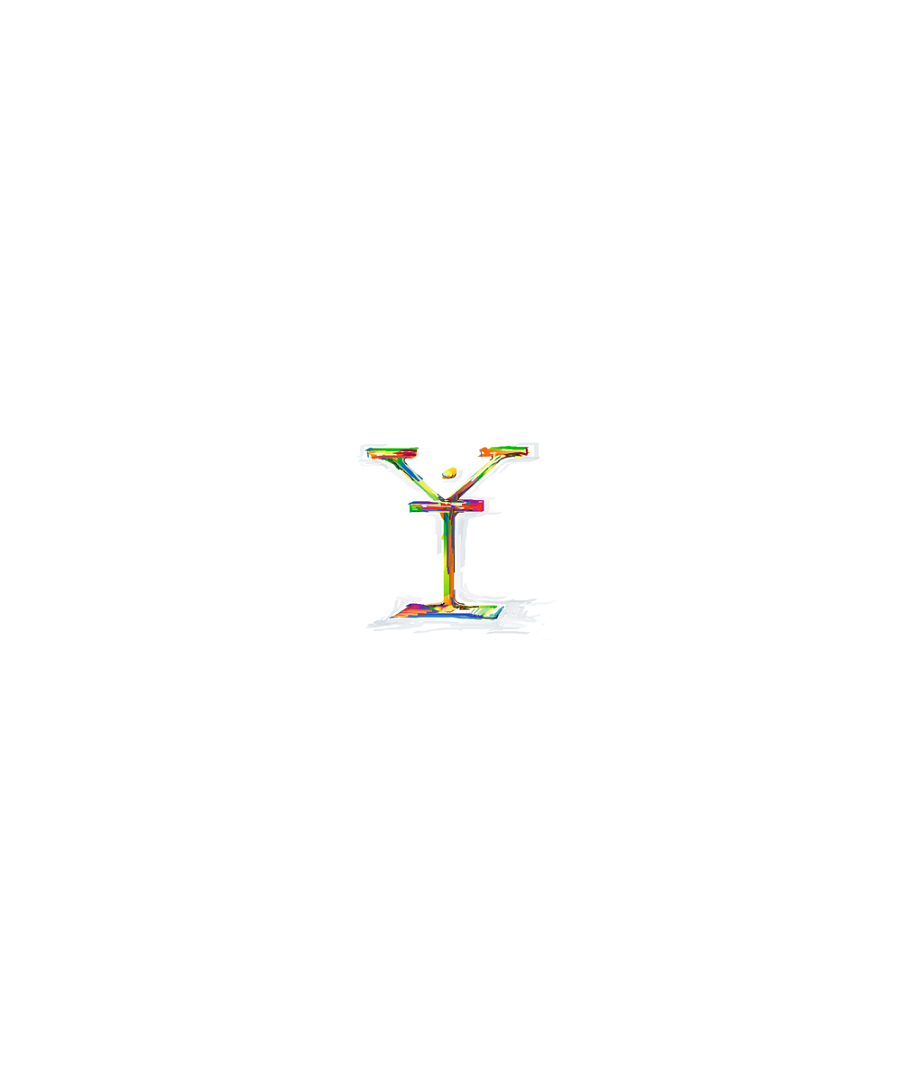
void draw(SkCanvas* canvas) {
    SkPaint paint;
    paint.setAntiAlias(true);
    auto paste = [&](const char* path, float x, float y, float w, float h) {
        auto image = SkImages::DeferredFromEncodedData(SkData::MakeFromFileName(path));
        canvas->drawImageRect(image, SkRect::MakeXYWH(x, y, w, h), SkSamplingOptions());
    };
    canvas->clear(SK_ColorWHITE);
    paste("pic1.png", 356, 442, 200, 198);
}
